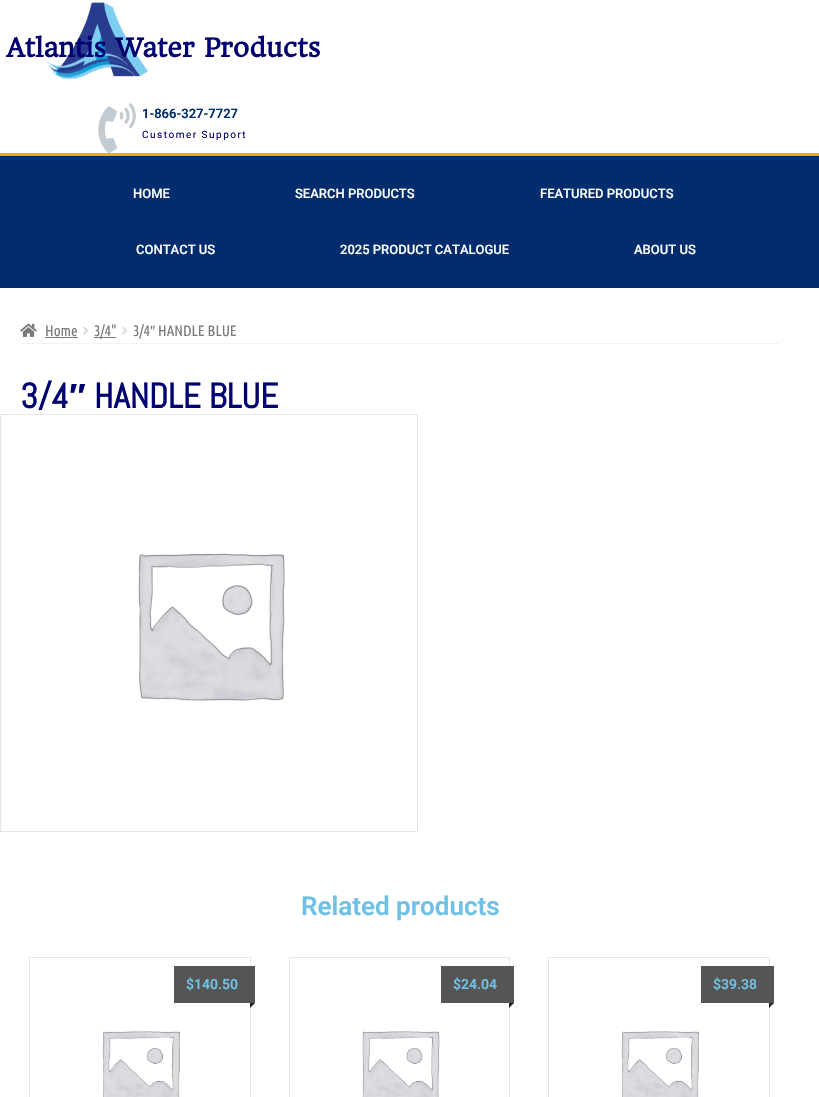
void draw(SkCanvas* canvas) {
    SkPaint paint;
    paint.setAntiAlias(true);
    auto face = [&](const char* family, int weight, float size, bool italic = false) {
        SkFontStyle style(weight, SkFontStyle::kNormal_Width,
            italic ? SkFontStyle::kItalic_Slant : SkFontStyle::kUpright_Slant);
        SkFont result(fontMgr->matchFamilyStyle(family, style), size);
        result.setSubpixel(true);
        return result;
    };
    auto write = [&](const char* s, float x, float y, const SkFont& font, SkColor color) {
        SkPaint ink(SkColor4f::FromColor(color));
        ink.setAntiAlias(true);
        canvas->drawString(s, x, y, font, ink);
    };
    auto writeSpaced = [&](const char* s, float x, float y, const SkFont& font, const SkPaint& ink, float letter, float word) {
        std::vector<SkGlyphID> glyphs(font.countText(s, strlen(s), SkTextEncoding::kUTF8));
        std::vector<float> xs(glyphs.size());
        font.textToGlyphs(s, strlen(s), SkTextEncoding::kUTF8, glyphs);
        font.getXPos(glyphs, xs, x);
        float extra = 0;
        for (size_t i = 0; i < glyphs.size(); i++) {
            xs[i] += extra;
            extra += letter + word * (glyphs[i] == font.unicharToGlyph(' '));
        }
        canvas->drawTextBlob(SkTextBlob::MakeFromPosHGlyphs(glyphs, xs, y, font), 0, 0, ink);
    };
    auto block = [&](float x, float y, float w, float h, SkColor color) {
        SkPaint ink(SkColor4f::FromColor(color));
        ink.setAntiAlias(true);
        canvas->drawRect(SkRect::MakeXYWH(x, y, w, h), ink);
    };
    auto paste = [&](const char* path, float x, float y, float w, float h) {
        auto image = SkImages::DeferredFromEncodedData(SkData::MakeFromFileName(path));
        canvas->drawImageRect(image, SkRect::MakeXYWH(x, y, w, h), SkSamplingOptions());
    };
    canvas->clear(SK_ColorWHITE);
    paste("pic1.png", 47, 2, 101, 77);
    auto kFont1 = face("HeadlandOne", 700, 25);
    write("Atlantis Water Products", 6, 57, kFont1, SkColorSetRGB(0, 0, 112));
    paste("pic2.png", 98, 103, 38, 50);
    auto kFont2 = face("Roboto", 600, 13);
    write("1-866-327-7727", 142, 118, kFont2, SkColorSetRGB(1, 44, 109));
    auto kFont3 = face("Roboto", 400, 10);
    paint.setColor(SkColorSetRGB(0, 0, 112));
    writeSpaced("Customer Support", 142, 138, kFont3, paint, 1.5f, 0);
    block(0, 156, 819, 132, SkColorSetRGB(1, 44, 109));
    block(0, 153, 819, 3, SkColorSetRGB(245, 166, 18));
    auto kFont4 = face("Roboto", 500, 13);
    write("HOME", 133, 198, kFont4, SK_ColorWHITE);
    write("SEARCH PRODUCTS", 295, 198, kFont4, SK_ColorWHITE);
    write("FEATURED PRODUCTS", 540, 198, kFont4, SK_ColorWHITE);
    write("CONTACT US", 136, 254, kFont4, SK_ColorWHITE);
    write("2025 PRODUCT CATALOGUE", 340, 254, kFont4, SK_ColorWHITE);
    write("ABOUT US", 634, 254, kFont4, SK_ColorWHITE);
    block(20, 343, 759, 1, SkColorSetRGB(242, 242, 242));
    paste("pic3.png", 20, 323, 17, 14);
    auto kFont5 = face("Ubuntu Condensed", 400, 15);
    write("Home", 45, 336, kFont5, SkColorSetRGB(122, 122, 122));
    block(45, 337, 33, 1, SkColorSetRGB(122, 122, 122));
    paste("pic4.png", 83, 326, 6, 9);
    block(94, 337, 22, 1, SkColorSetRGB(122, 122, 122));
    write("3/4\"", 94, 336, kFont5, SkColorSetRGB(122, 122, 122));
    paste("pic4.png", 122, 326, 6, 9);
    write("3/4", 133, 336, kFont5, SkColorSetRGB(122, 122, 122));
    auto kFont6 = face("Liberation Sans", 400, 15);
    write("″", 150, 336, kFont6, SkColorSetRGB(122, 122, 122));
    write("HANDLE BLUE", 158, 336, kFont5, SkColorSetRGB(122, 122, 122));
    auto kFont7 = face("Abel", 700, 35);
    write("3/4", 20, 408, kFont7, SkColorSetRGB(0, 0, 112));
    auto kFont8 = face("Liberation Sans", 700, 35);
    write("″", 69, 408, kFont8, SkColorSetRGB(0, 0, 112));
    write("HANDLE BLUE", 94, 408, kFont7, SkColorSetRGB(0, 0, 112));
    paint.setStyle(SkPaint::kStroke_Style);
    paint.setStrokeWidth(1);
    paint.setColor(SkColorSetRGB(230, 230, 230));
    canvas->drawRect(SkRect::MakeXYWH(0.5f, 414.5f, 417, 417), paint);
    paste("pic5.png", 138, 553, 147, 148);
    auto kFont9 = face("Roboto", 600, 26);
    write("Related products", 301, 915, kFont9, SkColorSetRGB(110, 193, 228));
    canvas->drawRect(SkRect::MakeXYWH(29.5f, 957.5f, 221, 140), paint);
    paste("pic6.png", 102, 1031, 78, 66);
    block(174, 966, 81, 37, SkColorSetRGB(85, 85, 85));
    auto kFont10 = face("Roboto", 600, 14);
    write("$140.50", 186, 989, kFont10, SkColorSetRGB(110, 193, 228));
    paint.setStyle(SkPaint::kFill_Style);
    paint.setColor(SkColorSetRGB(34, 34, 34));
    canvas->drawPath(SkPathBuilder().moveTo(250, 1003).lineTo(255, 1003).lineTo(250, 1008).close().detach(), paint);
    paint.setStyle(SkPaint::kStroke_Style);
    paint.setColor(SkColorSetRGB(230, 230, 230));
    canvas->drawRect(SkRect::MakeXYWH(289.5f, 957.5f, 220, 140), paint);
    paste("pic7.png", 362, 1031, 78, 66);
    block(441, 966, 73, 37, SkColorSetRGB(85, 85, 85));
    write("$24.04", 453, 989, kFont10, SkColorSetRGB(110, 193, 228));
    paint.setStyle(SkPaint::kFill_Style);
    paint.setColor(SkColorSetRGB(34, 34, 34));
    canvas->drawPath(SkPathBuilder().moveTo(509, 1003).lineTo(514, 1003).lineTo(509, 1008).close().detach(), paint);
    paint.setStyle(SkPaint::kStroke_Style);
    paint.setColor(SkColorSetRGB(230, 230, 230));
    canvas->drawRect(SkRect::MakeXYWH(548.5f, 957.5f, 221, 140), paint);
    paste("pic8.png", 621, 1031, 78, 66);
    block(701, 966, 73, 37, SkColorSetRGB(85, 85, 85));
    write("$39.38", 713, 989, kFont10, SkColorSetRGB(110, 193, 228));
    paint.setStyle(SkPaint::kFill_Style);
    paint.setColor(SkColorSetRGB(34, 34, 34));
    canvas->drawPath(SkPathBuilder().moveTo(769, 1003).lineTo(774, 1003).lineTo(769, 1008).close().detach(), paint);
}
